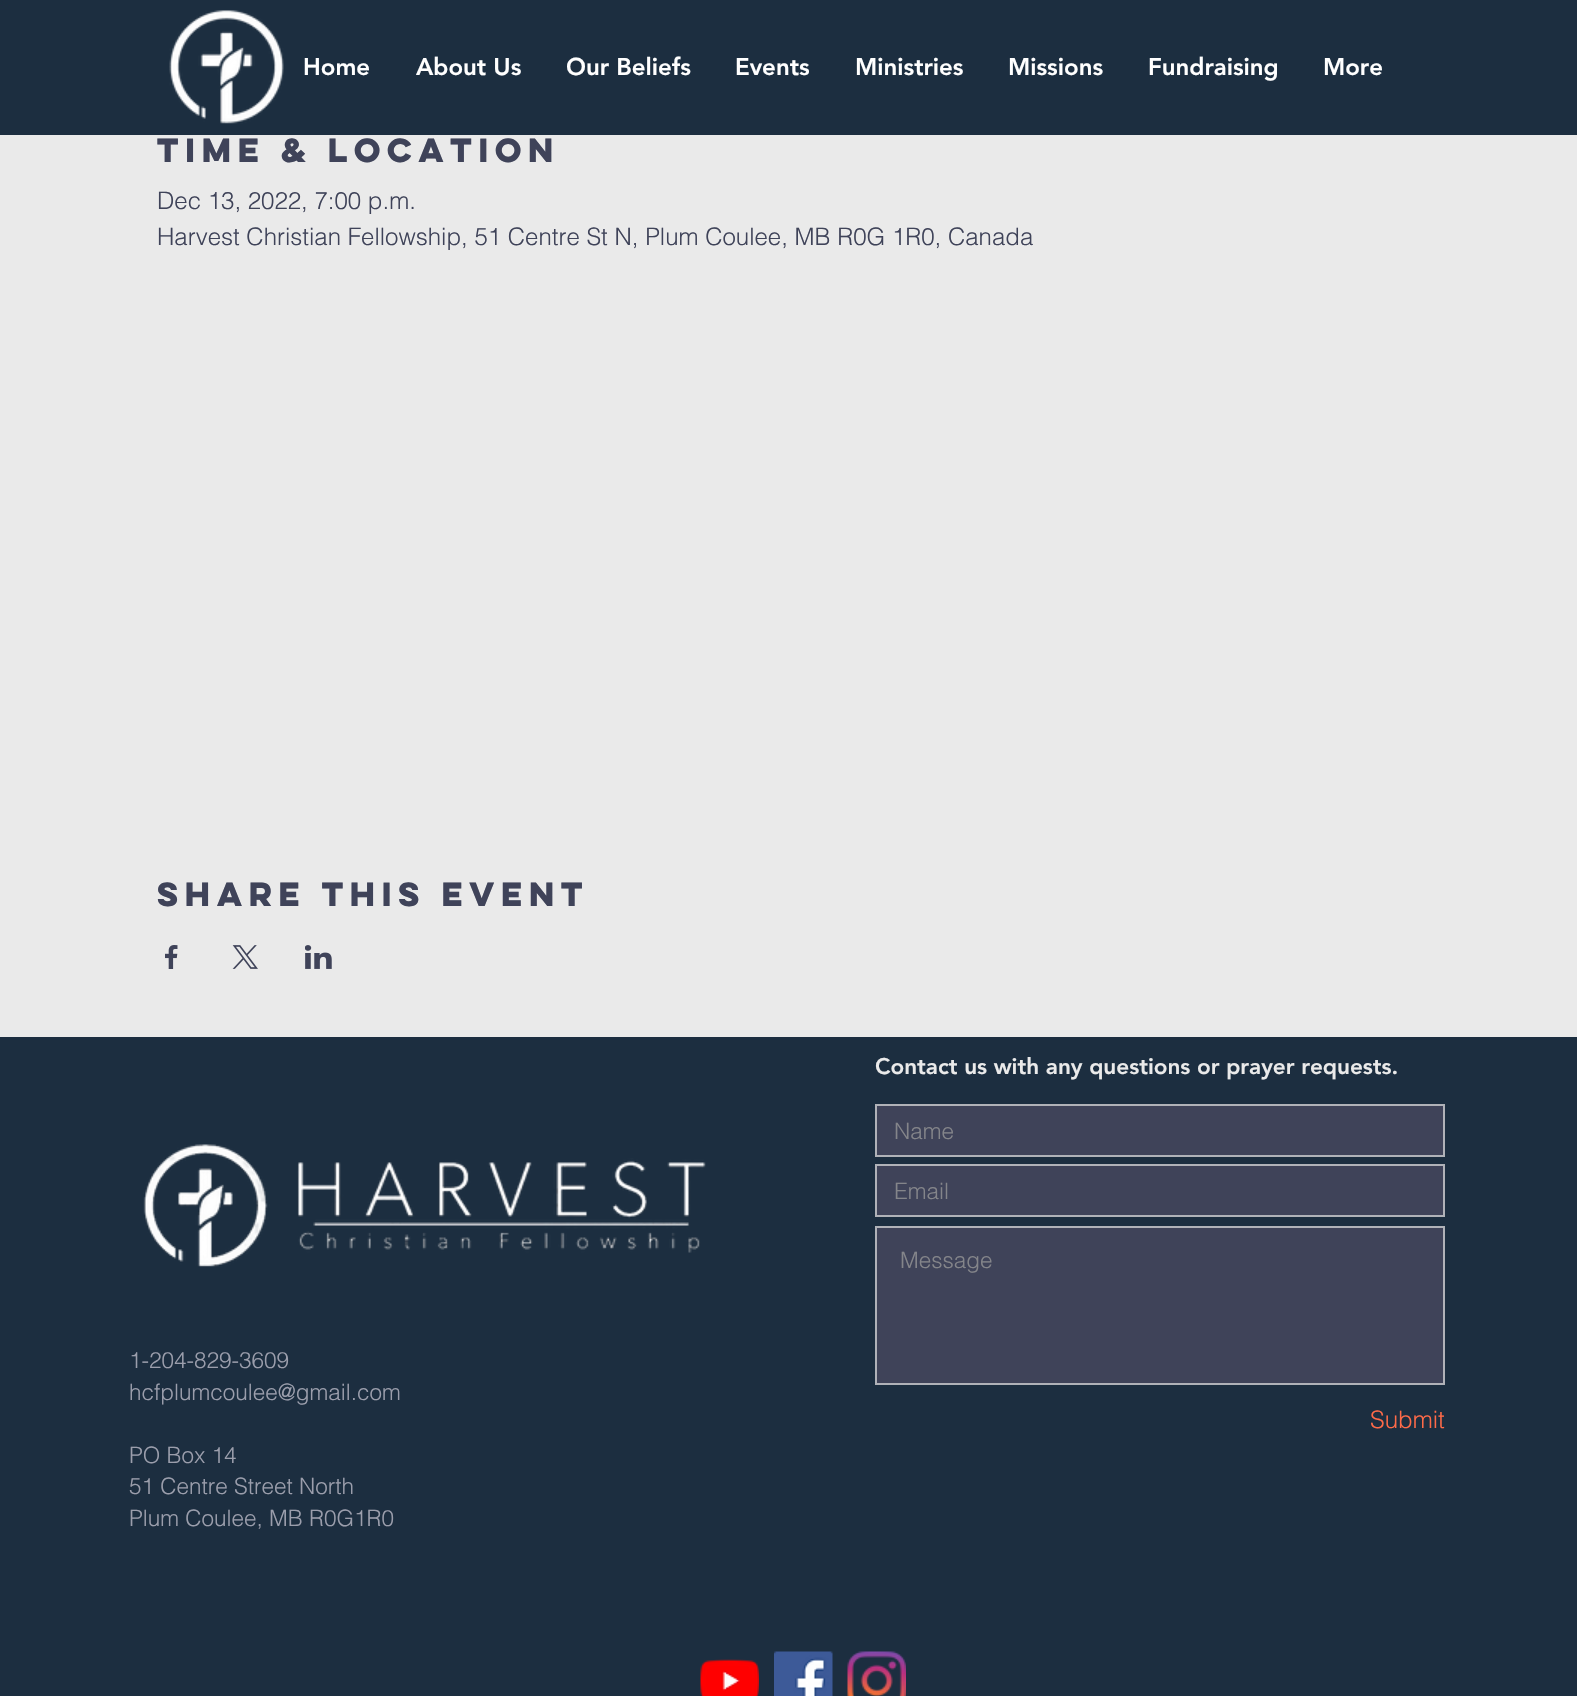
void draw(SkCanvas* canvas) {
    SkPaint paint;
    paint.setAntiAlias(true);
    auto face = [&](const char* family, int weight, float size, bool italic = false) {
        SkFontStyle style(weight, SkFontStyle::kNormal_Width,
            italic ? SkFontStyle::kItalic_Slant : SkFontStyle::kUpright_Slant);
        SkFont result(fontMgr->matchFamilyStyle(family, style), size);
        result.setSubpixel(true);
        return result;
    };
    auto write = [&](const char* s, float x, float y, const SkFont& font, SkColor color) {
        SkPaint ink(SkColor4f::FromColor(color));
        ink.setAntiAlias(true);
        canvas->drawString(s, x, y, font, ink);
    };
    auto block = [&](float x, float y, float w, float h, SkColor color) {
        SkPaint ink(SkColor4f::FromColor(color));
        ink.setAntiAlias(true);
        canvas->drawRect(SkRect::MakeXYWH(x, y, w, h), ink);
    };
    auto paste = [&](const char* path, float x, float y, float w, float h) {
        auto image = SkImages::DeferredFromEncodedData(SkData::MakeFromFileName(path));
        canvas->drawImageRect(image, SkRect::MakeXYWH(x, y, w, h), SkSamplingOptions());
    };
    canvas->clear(SkColorSetRGB(234, 234, 234));
    block(0, 0, 1577, 135, SkColorSetRGB(28, 46, 64));
    paste("pic1.png", 169, 10, 115, 114);
    auto kFont1 = face("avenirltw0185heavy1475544", 900, 24);
    write("Home", 303, 75, kFont1, SK_ColorWHITE);
    write("About Us", 416, 75, kFont1, SK_ColorWHITE);
    write("Our Beliefs", 566, 75, kFont1, SK_ColorWHITE);
    write("Events", 735, 75, kFont1, SK_ColorWHITE);
    write("Ministries", 855, 75, kFont1, SK_ColorWHITE);
    write("Missions", 1008, 75, kFont1, SK_ColorWHITE);
    write("Fundraising", 1148, 75, kFont1, SK_ColorWHITE);
    write("More", 1323, 75, kFont1, SK_ColorWHITE);
    auto kFont2 = face("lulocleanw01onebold", 700, 30);
    write("Time & Location", 157, 162, kFont2, SkColorSetRGB(63, 67, 89));
    auto kFont3 = face("helvetica", 300, 24);
    write("Dec 13, 2022, 7:00 p.m.", 157, 209, kFont3, SkColorSetRGB(63, 67, 89));
    write("Harvest Christian Fellowship, 51 Centre St N, Plum Coulee, MB R0G 1R0, Canada", 157, 245, kFont3, SkColorSetRGB(63, 67, 89));
    write("Share this event", 157, 906, kFont2, SkColorSetRGB(63, 67, 89));
    paste("pic2.png", 165, 945, 13, 24);
    paste("pic3.png", 232, 945, 26, 24);
    paste("pic4.png", 305, 945, 27, 24);
    block(0, 1037, 1577, 659, SkColorSetRGB(28, 46, 64));
    auto kFont4 = face("avenirltw0185heavy1475544", 900, 22.5f);
    write("Contact us with any questions or prayer requests.", 875, 1074, kFont4, SkColorSetRGB(234, 234, 234));
    paste("pic5.png", 143, 1144, 563, 123);
    paint.setColor(SkColorSetRGB(63, 67, 89));
    canvas->drawRect(SkRect::MakeXYWH(876, 1105, 568, 51), paint);
    paint.setStyle(SkPaint::kStroke_Style);
    paint.setStrokeWidth(2);
    paint.setColor(SkColorSetRGB(176, 178, 184));
    canvas->drawRect(SkRect::MakeXYWH(876, 1105, 568, 51), paint);
    auto kFont5 = face("helvetica", 300, 22.5f);
    write("Name", 894, 1139, kFont5, SkColorSetRGB(132, 133, 138));
    paint.setStyle(SkPaint::kFill_Style);
    paint.setColor(SkColorSetRGB(63, 67, 89));
    canvas->drawRect(SkRect::MakeXYWH(876, 1165, 568, 51), paint);
    paint.setStyle(SkPaint::kStroke_Style);
    paint.setColor(SkColorSetRGB(176, 178, 184));
    canvas->drawRect(SkRect::MakeXYWH(876, 1165, 568, 51), paint);
    write("Email", 894, 1199, kFont5, SkColorSetRGB(132, 133, 138));
    paint.setStyle(SkPaint::kFill_Style);
    paint.setColor(SkColorSetRGB(63, 67, 89));
    canvas->drawRect(SkRect::MakeXYWH(876, 1227, 568, 157), paint);
    paint.setStyle(SkPaint::kStroke_Style);
    paint.setColor(SkColorSetRGB(176, 178, 184));
    canvas->drawRect(SkRect::MakeXYWH(876, 1227, 568, 157), paint);
    write("Message", 900, 1268, kFont5, SkColorSetRGB(132, 133, 138));
    write("Submit", 1370, 1428, kFont3, SkColorSetRGB(255, 106, 72));
    write("1-204-829-3609", 129, 1368, kFont5, SkColorSetRGB(155, 158, 172));
    write("hcfplumcoulee@gmail.com", 129, 1400, kFont5, SkColorSetRGB(155, 158, 172));
    write("PO Box 14", 129, 1463, kFont5, SkColorSetRGB(155, 158, 172));
    write("51 Centre Street North", 129, 1494, kFont5, SkColorSetRGB(155, 158, 172));
    write("Plum Coulee, MB R0G1R0", 129, 1526, kFont5, SkColorSetRGB(155, 158, 172));
    paste("pic6.png", 700, 1659, 59, 37);
    paste("pic7.png", 774, 1651, 59, 45);
    paste("pic8.png", 847, 1651, 59, 45);
}
